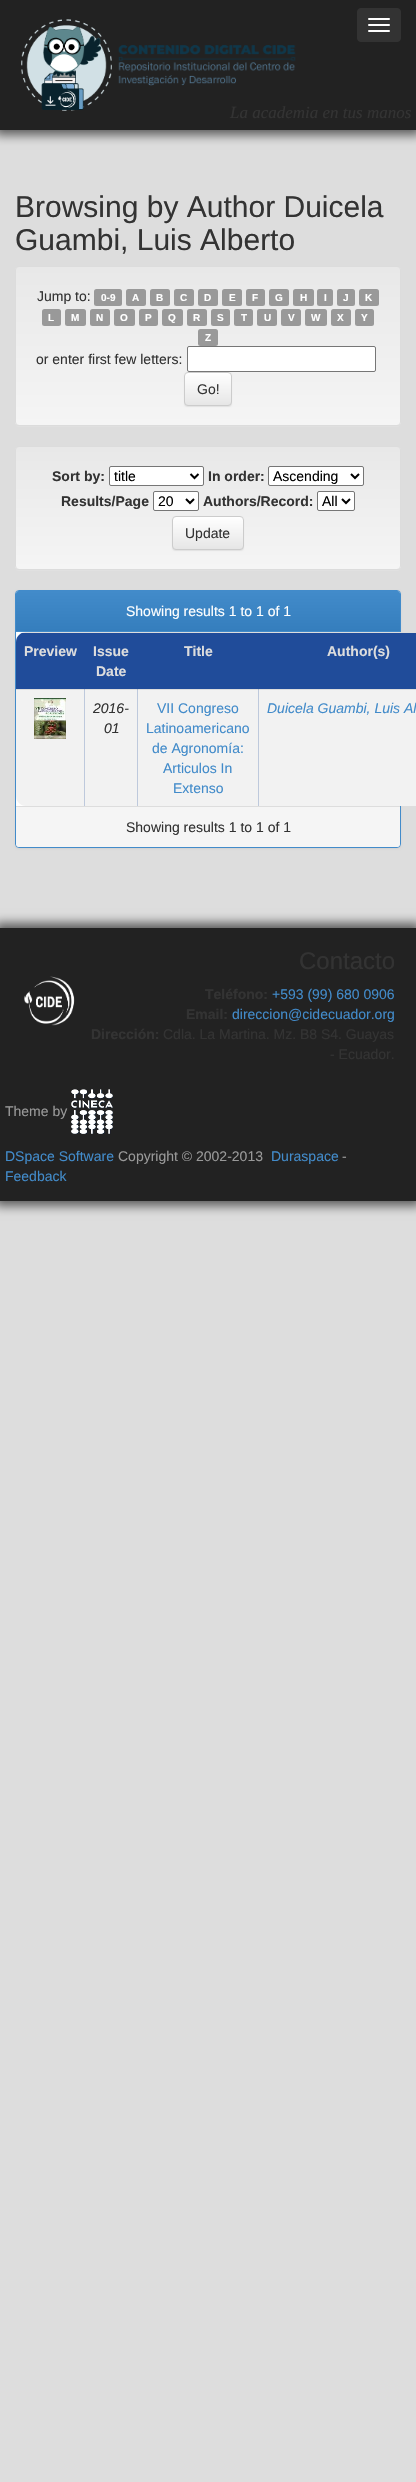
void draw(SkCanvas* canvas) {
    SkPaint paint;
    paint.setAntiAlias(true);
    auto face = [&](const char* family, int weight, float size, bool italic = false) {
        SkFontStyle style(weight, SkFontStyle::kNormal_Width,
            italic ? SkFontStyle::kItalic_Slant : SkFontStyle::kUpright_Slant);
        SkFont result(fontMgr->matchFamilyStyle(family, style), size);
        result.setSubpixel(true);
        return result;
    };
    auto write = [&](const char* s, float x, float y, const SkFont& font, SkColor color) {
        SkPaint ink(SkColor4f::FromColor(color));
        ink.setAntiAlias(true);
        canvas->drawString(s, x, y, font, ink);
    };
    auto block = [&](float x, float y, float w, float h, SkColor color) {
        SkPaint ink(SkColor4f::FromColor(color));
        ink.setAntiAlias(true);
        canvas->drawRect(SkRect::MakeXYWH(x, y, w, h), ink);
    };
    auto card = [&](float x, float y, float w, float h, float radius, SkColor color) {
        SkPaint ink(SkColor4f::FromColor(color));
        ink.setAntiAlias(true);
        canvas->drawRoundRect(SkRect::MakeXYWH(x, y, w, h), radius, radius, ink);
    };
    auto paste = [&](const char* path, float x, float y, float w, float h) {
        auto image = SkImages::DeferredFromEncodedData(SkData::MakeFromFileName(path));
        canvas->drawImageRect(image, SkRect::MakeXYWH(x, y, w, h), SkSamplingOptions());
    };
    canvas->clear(SkColorSetRGB(221, 221, 221));
    paint.setColor(SkColorSetRGB(90, 90, 90));
    paint.setMaskFilter(SkMaskFilter::MakeBlur(kNormal_SkBlurStyle, 5));
    canvas->drawRect(SkRect::MakeXYWH(-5, -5, 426, 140), paint);
    paint.setMaskFilter(nullptr);
    block(0, 0, 416, 130, SkColorSetRGB(34, 34, 34));
    paste("pic1.png", 21, 19, 91, 92);
    paste("pic2.png", 118, 45, 178, 41);
    paint.setColor(SkColorSetRGB(51, 51, 51));
    canvas->drawRoundRect(SkRect::MakeXYWH(357.5f, 8.5f, 43, 33), 3.5f, 3.5f, paint);
    paint.setStyle(SkPaint::kStroke_Style);
    paint.setStrokeWidth(1);
    canvas->drawRoundRect(SkRect::MakeXYWH(357.5f, 8.5f, 43, 33), 3.5f, 3.5f, paint);
    card(368, 18, 22, 2, 1, SK_ColorWHITE);
    card(368, 24, 22, 2, 1, SK_ColorWHITE);
    card(368, 30, 22, 2, 1, SK_ColorWHITE);
    auto kFont1 = face("Liberation Serif", 400, 17, true);
    write("La academia en tus manos", 230, 118, kFont1, SkColorSetRGB(51, 51, 51));
    auto kFont2 = face("Liberation Sans", 400, 30);
    write("Browsing by Author Duicela", 15, 217, kFont2, SkColorSetRGB(51, 51, 51));
    write("Guambi, Luis Alberto", 15, 250, kFont2, SkColorSetRGB(51, 51, 51));
    paint.setStyle(SkPaint::kFill_Style);
    paint.setColor(SkColorSetRGB(224, 224, 224));
    canvas->drawPath(SkPathBuilder().moveTo(15, 422).cubicTo(15, 425, 16, 427, 19, 427).lineTo(397, 427).cubicTo(400, 427, 401, 425, 401, 422).cubicTo(401, 424, 399, 426, 397, 426).lineTo(19, 426).cubicTo(17, 426, 15, 424, 15, 422).close().detach(), paint);
    canvas->save();
    canvas->clipPath(SkPathBuilder().moveTo(19, 266).lineTo(397, 266).cubicTo(399, 266, 401, 268, 401, 270).lineTo(401, 422).cubicTo(401, 424, 399, 426, 397, 426).lineTo(19, 426).cubicTo(17, 426, 15, 424, 15, 422).lineTo(15, 270).cubicTo(15, 268, 17, 266, 19, 266).close().detach(), true);
    {
        const SkColor colors[] = {SkColorSetRGB(232, 232, 232), SkColorSetRGB(245, 245, 245)};
        const float stops[] = {0, 1};
        const SkPoint ends[] = {{208, 267}, {208, 425}};
        paint.setShader(SkGradientShader::MakeLinear(ends, colors, stops, 2, SkTileMode::kClamp));
        paint.setAlpha(255);
    }
    canvas->drawRect(SkRect::MakeXYWH(15, 267, 386, 158), paint);
    canvas->restore();
    paint.setStyle(SkPaint::kStroke_Style);
    paint.setShader(nullptr);
    paint.setColor(SkColorSetRGB(220, 220, 220));
    canvas->drawRoundRect(SkRect::MakeXYWH(15.5f, 266.5f, 385, 159), 3.5f, 3.5f, paint);
    auto kFont3 = face("Liberation Sans", 400, 14);
    write("Jump to:", 37, 301, kFont3, SkColorSetRGB(51, 51, 51));
    card(94, 289, 28, 17, 2.5f, SkColorSetRGB(153, 153, 153));
    auto kFont4 = face("Liberation Sans", 700, 10);
    write("0-9", 101, 301, kFont4, SK_ColorWHITE);
    card(126, 289, 20, 17, 2.5f, SkColorSetRGB(153, 153, 153));
    write("A", 132, 301, kFont4, SK_ColorWHITE);
    card(150, 289, 20, 17, 2.5f, SkColorSetRGB(153, 153, 153));
    write("B", 156, 301, kFont4, SK_ColorWHITE);
    card(174, 289, 20, 17, 2.5f, SkColorSetRGB(153, 153, 153));
    write("C", 180, 301, kFont4, SK_ColorWHITE);
    card(198, 289, 20, 17, 2.5f, SkColorSetRGB(153, 153, 153));
    write("D", 204, 301, kFont4, SK_ColorWHITE);
    card(222, 289, 20, 17, 2.5f, SkColorSetRGB(153, 153, 153));
    write("E", 229, 301, kFont4, SK_ColorWHITE);
    card(246, 289, 19, 17, 2.5f, SkColorSetRGB(153, 153, 153));
    write("F", 252, 301, kFont4, SK_ColorWHITE);
    card(269, 289, 20, 17, 2.5f, SkColorSetRGB(153, 153, 153));
    write("G", 275, 301, kFont4, SK_ColorWHITE);
    card(293, 289, 21, 17, 2.5f, SkColorSetRGB(153, 153, 153));
    write("H", 300, 301, kFont4, SK_ColorWHITE);
    card(317, 289, 16, 17, 2.5f, SkColorSetRGB(153, 153, 153));
    write("I", 324, 301, kFont4, SK_ColorWHITE);
    card(337, 289, 18, 17, 2.5f, SkColorSetRGB(153, 153, 153));
    write("J", 343, 301, kFont4, SK_ColorWHITE);
    card(359, 289, 20, 17, 2.5f, SkColorSetRGB(153, 153, 153));
    write("K", 365, 301, kFont4, SK_ColorWHITE);
    card(42, 309, 19, 17, 2.5f, SkColorSetRGB(153, 153, 153));
    write("L", 48, 321, kFont4, SK_ColorWHITE);
    card(65, 309, 21, 17, 2.5f, SkColorSetRGB(153, 153, 153));
    write("M", 71, 321, kFont4, SK_ColorWHITE);
    card(90, 309, 20, 17, 2.5f, SkColorSetRGB(153, 153, 153));
    write("N", 96, 321, kFont4, SK_ColorWHITE);
    card(114, 309, 21, 17, 2.5f, SkColorSetRGB(153, 153, 153));
    write("O", 120, 321, kFont4, SK_ColorWHITE);
    card(139, 309, 19, 17, 2.5f, SkColorSetRGB(153, 153, 153));
    write("P", 145, 321, kFont4, SK_ColorWHITE);
    card(162, 309, 21, 17, 2.5f, SkColorSetRGB(153, 153, 153));
    write("Q", 168, 321, kFont4, SK_ColorWHITE);
    card(187, 309, 20, 17, 2.5f, SkColorSetRGB(153, 153, 153));
    write("R", 193, 321, kFont4, SK_ColorWHITE);
    card(211, 309, 19, 17, 2.5f, SkColorSetRGB(153, 153, 153));
    write("S", 217, 321, kFont4, SK_ColorWHITE);
    card(234, 309, 19, 17, 2.5f, SkColorSetRGB(153, 153, 153));
    write("T", 241, 321, kFont4, SK_ColorWHITE);
    card(257, 309, 20, 17, 2.5f, SkColorSetRGB(153, 153, 153));
    write("U", 264, 321, kFont4, SK_ColorWHITE);
    card(281, 309, 20, 17, 2.5f, SkColorSetRGB(153, 153, 153));
    write("V", 288, 321, kFont4, SK_ColorWHITE);
    card(305, 309, 22, 17, 2.5f, SkColorSetRGB(153, 153, 153));
    write("W", 311, 321, kFont4, SK_ColorWHITE);
    card(331, 309, 20, 17, 2.5f, SkColorSetRGB(153, 153, 153));
    write("X", 337, 321, kFont4, SK_ColorWHITE);
    card(355, 309, 19, 17, 2.5f, SkColorSetRGB(153, 153, 153));
    write("Y", 361, 321, kFont4, SK_ColorWHITE);
    card(198, 329, 20, 17, 2.5f, SkColorSetRGB(153, 153, 153));
    write("Z", 205, 341, kFont4, SK_ColorWHITE);
    write("or enter first few letters:", 36, 364, kFont3, SkColorSetRGB(51, 51, 51));
    paint.setStyle(SkPaint::kFill_Style);
    paint.setColor(SK_ColorWHITE);
    canvas->drawRoundRect(SkRect::MakeXYWH(187.5f, 346.5f, 188, 25), 1.5f, 1.5f, paint);
    paint.setStyle(SkPaint::kStroke_Style);
    paint.setColor(SkColorSetRGB(118, 118, 118));
    canvas->drawRoundRect(SkRect::MakeXYWH(187.5f, 346.5f, 188, 25), 1.5f, 1.5f, paint);
    paint.setStyle(SkPaint::kFill_Style);
    paint.setColor(SkColorSetARGB(18, 0, 0, 0));
    paint.setMaskFilter(SkMaskFilter::MakeBlur(kNormal_SkBlurStyle, 0.5f));
    canvas->drawRoundRect(SkRect::MakeXYWH(184, 373, 48, 34), 4, 4, paint);
    paint.setMaskFilter(nullptr);
    canvas->save();
    canvas->clipPath(SkPathBuilder().moveTo(188, 372).lineTo(228, 372).cubicTo(230, 372, 232, 374, 232, 376).lineTo(232, 402).cubicTo(232, 404, 230, 406, 228, 406).lineTo(188, 406).cubicTo(186, 406, 184, 404, 184, 402).lineTo(184, 376).cubicTo(184, 374, 186, 372, 188, 372).close().detach(), true);
    {
        const SkColor colors[] = {SK_ColorWHITE, SkColorSetRGB(230, 230, 230)};
        const float stops[] = {0, 1};
        const SkPoint ends[] = {{208, 373}, {208, 405}};
        paint.setShader(SkGradientShader::MakeLinear(ends, colors, stops, 2, SkTileMode::kClamp));
        paint.setAlpha(255);
    }
    canvas->drawRect(SkRect::MakeXYWH(184, 373, 48, 32), paint);
    canvas->restore();
    paint.setStyle(SkPaint::kStroke_Style);
    paint.setShader(nullptr);
    paint.setColor(SkColorSetRGB(204, 204, 204));
    canvas->drawRoundRect(SkRect::MakeXYWH(184.5f, 372.5f, 47, 33), 3.5f, 3.5f, paint);
    write("Go!", 197, 394, kFont3, SkColorSetRGB(51, 51, 51));
    paint.setStyle(SkPaint::kFill_Style);
    paint.setColor(SkColorSetRGB(224, 224, 224));
    canvas->drawPath(SkPathBuilder().moveTo(15, 566).cubicTo(15, 569, 16, 571, 19, 571).lineTo(397, 571).cubicTo(400, 571, 401, 569, 401, 566).cubicTo(401, 568, 399, 570, 397, 570).lineTo(19, 570).cubicTo(17, 570, 15, 568, 15, 566).close().detach(), paint);
    canvas->save();
    canvas->clipPath(SkPathBuilder().moveTo(19, 446).lineTo(397, 446).cubicTo(399, 446, 401, 448, 401, 450).lineTo(401, 566).cubicTo(401, 568, 399, 570, 397, 570).lineTo(19, 570).cubicTo(17, 570, 15, 568, 15, 566).lineTo(15, 450).cubicTo(15, 448, 17, 446, 19, 446).close().detach(), true);
    {
        const SkColor colors[] = {SkColorSetRGB(232, 232, 232), SkColorSetRGB(245, 245, 245)};
        const float stops[] = {0, 1};
        const SkPoint ends[] = {{208, 447}, {208, 569}};
        paint.setShader(SkGradientShader::MakeLinear(ends, colors, stops, 2, SkTileMode::kClamp));
        paint.setAlpha(255);
    }
    canvas->drawRect(SkRect::MakeXYWH(15, 447, 386, 122), paint);
    canvas->restore();
    paint.setStyle(SkPaint::kStroke_Style);
    paint.setShader(nullptr);
    paint.setColor(SkColorSetRGB(220, 220, 220));
    canvas->drawRoundRect(SkRect::MakeXYWH(15.5f, 446.5f, 385, 123), 3.5f, 3.5f, paint);
    auto kFont5 = face("Liberation Sans", 700, 14);
    write("Sort by:", 52, 481, kFont5, SkColorSetRGB(51, 51, 51));
    paint.setStyle(SkPaint::kFill_Style);
    paint.setColor(SK_ColorWHITE);
    canvas->drawRoundRect(SkRect::MakeXYWH(109.5f, 466.5f, 94, 19), 1.5f, 1.5f, paint);
    paint.setStyle(SkPaint::kStroke_Style);
    paint.setColor(SkColorSetRGB(118, 118, 118));
    canvas->drawRoundRect(SkRect::MakeXYWH(109.5f, 466.5f, 94, 19), 1.5f, 1.5f, paint);
    paint.setStrokeWidth(2);
    paint.setColor(SK_ColorBLACK);
    canvas->drawPath(SkPathBuilder().moveTo(190.5f, 474).lineTo(194.5f, 478).lineTo(198.5f, 474).detach(), paint);
    write("title", 114, 481, kFont3, SK_ColorBLACK);
    write("In order:", 208, 481, kFont5, SkColorSetRGB(51, 51, 51));
    paint.setStyle(SkPaint::kFill_Style);
    paint.setColor(SK_ColorWHITE);
    canvas->drawRoundRect(SkRect::MakeXYWH(268.5f, 466.5f, 95, 19), 1.5f, 1.5f, paint);
    paint.setStyle(SkPaint::kStroke_Style);
    paint.setStrokeWidth(1);
    paint.setColor(SkColorSetRGB(118, 118, 118));
    canvas->drawRoundRect(SkRect::MakeXYWH(268.5f, 466.5f, 95, 19), 1.5f, 1.5f, paint);
    paint.setStrokeWidth(2);
    paint.setColor(SK_ColorBLACK);
    canvas->drawPath(SkPathBuilder().moveTo(351, 474).lineTo(355, 478).lineTo(359, 474).detach(), paint);
    write("Ascending", 273, 481, kFont3, SK_ColorBLACK);
    write("Results/Page", 61, 506, kFont5, SkColorSetRGB(51, 51, 51));
    paint.setStyle(SkPaint::kFill_Style);
    paint.setColor(SK_ColorWHITE);
    canvas->drawRoundRect(SkRect::MakeXYWH(153.5f, 491.5f, 45, 19), 1.5f, 1.5f, paint);
    paint.setStyle(SkPaint::kStroke_Style);
    paint.setStrokeWidth(1);
    paint.setColor(SkColorSetRGB(118, 118, 118));
    canvas->drawRoundRect(SkRect::MakeXYWH(153.5f, 491.5f, 45, 19), 1.5f, 1.5f, paint);
    paint.setStrokeWidth(2);
    paint.setColor(SK_ColorBLACK);
    canvas->drawPath(SkPathBuilder().moveTo(186, 499).lineTo(190, 503).lineTo(194, 499).detach(), paint);
    write("20", 158, 506, kFont3, SK_ColorBLACK);
    write("Authors/Record:", 203, 506, kFont5, SkColorSetRGB(51, 51, 51));
    paint.setStyle(SkPaint::kFill_Style);
    paint.setColor(SK_ColorWHITE);
    canvas->drawRoundRect(SkRect::MakeXYWH(317.5f, 491.5f, 37, 19), 1.5f, 1.5f, paint);
    paint.setStyle(SkPaint::kStroke_Style);
    paint.setStrokeWidth(1);
    paint.setColor(SkColorSetRGB(118, 118, 118));
    canvas->drawRoundRect(SkRect::MakeXYWH(317.5f, 491.5f, 37, 19), 1.5f, 1.5f, paint);
    paint.setStrokeWidth(2);
    paint.setColor(SK_ColorBLACK);
    canvas->drawPath(SkPathBuilder().moveTo(342, 499).lineTo(346, 503).lineTo(350, 499).detach(), paint);
    write("All", 322, 506, kFont3, SK_ColorBLACK);
    paint.setStyle(SkPaint::kFill_Style);
    paint.setColor(SkColorSetARGB(18, 0, 0, 0));
    paint.setMaskFilter(SkMaskFilter::MakeBlur(kNormal_SkBlurStyle, 0.5f));
    canvas->drawRoundRect(SkRect::MakeXYWH(172, 517, 72, 34), 4, 4, paint);
    paint.setMaskFilter(nullptr);
    canvas->save();
    canvas->clipPath(SkPathBuilder().moveTo(176, 516).lineTo(240, 516).cubicTo(242, 516, 244, 518, 244, 520).lineTo(244, 546).cubicTo(244, 548, 242, 550, 240, 550).lineTo(176, 550).cubicTo(174, 550, 172, 548, 172, 546).lineTo(172, 520).cubicTo(172, 518, 174, 516, 176, 516).close().detach(), true);
    {
        const SkColor colors[] = {SK_ColorWHITE, SkColorSetRGB(230, 230, 230)};
        const float stops[] = {0, 1};
        const SkPoint ends[] = {{208, 517}, {208, 549}};
        paint.setShader(SkGradientShader::MakeLinear(ends, colors, stops, 2, SkTileMode::kClamp));
        paint.setAlpha(255);
    }
    canvas->drawRect(SkRect::MakeXYWH(172, 517, 72, 32), paint);
    canvas->restore();
    paint.setStyle(SkPaint::kStroke_Style);
    paint.setStrokeWidth(1);
    paint.setShader(nullptr);
    paint.setColor(SkColorSetRGB(204, 204, 204));
    canvas->drawRoundRect(SkRect::MakeXYWH(172.5f, 516.5f, 71, 33), 3.5f, 3.5f, paint);
    write("Update", 185, 538, kFont3, SkColorSetRGB(51, 51, 51));
    paint.setStyle(SkPaint::kFill_Style);
    paint.setColor(SkColorSetARGB(13, 0, 0, 0));
    paint.setMaskFilter(SkMaskFilter::MakeBlur(kNormal_SkBlurStyle, 1));
    canvas->drawRoundRect(SkRect::MakeXYWH(15, 591, 386, 258), 4, 4, paint);
    paint.setMaskFilter(nullptr);
    paint.setColor(SK_ColorWHITE);
    canvas->drawRoundRect(SkRect::MakeXYWH(15.5f, 590.5f, 385, 257), 3.5f, 3.5f, paint);
    paint.setStyle(SkPaint::kStroke_Style);
    paint.setColor(SkColorSetRGB(66, 139, 202));
    canvas->drawRoundRect(SkRect::MakeXYWH(15.5f, 590.5f, 385, 257), 3.5f, 3.5f, paint);
    paint.setStyle(SkPaint::kFill_Style);
    canvas->drawPath(SkPathBuilder().moveTo(19, 591).lineTo(397, 591).cubicTo(398.5f, 591, 400, 592.5f, 400, 594).lineTo(400, 632).lineTo(16, 632).lineTo(16, 594).cubicTo(16, 592.5f, 17.5f, 591, 19, 591).close().detach(), paint);
    {
        const SkColor colors[] = {SkColorSetRGB(66, 139, 202), SkColorSetRGB(53, 126, 189)};
        const float stops[] = {0, 1};
        const SkPoint ends[] = {{208, 591}, {208, 631}};
        paint.setShader(SkGradientShader::MakeLinear(ends, colors, stops, 2, SkTileMode::kClamp));
        paint.setAlpha(255);
    }
    canvas->drawPath(SkPathBuilder().moveTo(19, 591).lineTo(397, 591).cubicTo(398.5f, 591, 400, 592.5f, 400, 594).lineTo(400, 631).lineTo(16, 631).lineTo(16, 594).cubicTo(16, 592.5f, 17.5f, 591, 19, 591).close().detach(), paint);
    write("Showing results 1 to 1 of 1", 126, 616, kFont3, SK_ColorWHITE);
    canvas->save();
    canvas->clipPath(SkPathBuilder().moveTo(26, 632).lineTo(448, 632).cubicTo(453.5f, 632, 458, 636.5f, 458, 642).lineTo(458, 796).cubicTo(458, 801.5f, 453.5f, 806, 448, 806).lineTo(26, 806).cubicTo(20.5f, 806, 16, 801.5f, 16, 796).lineTo(16, 642).cubicTo(16, 636.5f, 20.5f, 632, 26, 632).close().detach(), true);
    block(16, 633, 69, 56, SkColorSetRGB(32, 76, 154));
    canvas->restore();
    block(84, 632, 318, 1, SkColorSetRGB(221, 221, 221));
    canvas->save();
    canvas->clipPath(SkPathBuilder().moveTo(26, 632).lineTo(448, 632).cubicTo(453.5f, 632, 458, 636.5f, 458, 642).lineTo(458, 796).cubicTo(458, 801.5f, 453.5f, 806, 448, 806).lineTo(26, 806).cubicTo(20.5f, 806, 16, 801.5f, 16, 796).lineTo(16, 642).cubicTo(16, 636.5f, 20.5f, 632, 26, 632).close().detach(), true);
    block(16, 632, 69, 1, SkColorSetRGB(221, 221, 221));
    canvas->restore();
    write("Preview", 24, 656, kFont5, SkColorSetRGB(221, 221, 221));
    block(85, 633, 331, 56, SkColorSetRGB(32, 76, 154));
    write("Issue", 93, 656, kFont5, SkColorSetRGB(221, 221, 221));
    write("Date", 96, 676, kFont5, SkColorSetRGB(221, 221, 221));
    write("Title", 184, 656, kFont5, SkColorSetRGB(221, 221, 221));
    write("Author(s)", 327, 656, kFont5, SkColorSetRGB(221, 221, 221));
    paint.setShader(nullptr);
    paint.setColor(SkColorSetRGB(242, 242, 242));
    canvas->drawPath(SkPathBuilder().moveTo(16, 690).lineTo(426, 690).lineTo(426, 796).cubicTo(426, 801.5f, 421.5f, 806, 416, 806).lineTo(26, 806).cubicTo(20.5f, 806, 16, 801.5f, 16, 796).close().detach(), paint);
    block(84, 690, 1, 116, SkColorSetRGB(190, 201, 220));
    block(137, 690, 1, 116, SkColorSetRGB(190, 201, 220));
    block(258, 690, 1, 116, SkColorSetRGB(190, 201, 220));
    block(16, 689, 386, 1, SkColorSetRGB(221, 221, 221));
    block(84, 689, 1, 1, SkColorSetRGB(174, 185, 204));
    paste("pic3.png", 34, 698, 32, 41);
    block(137, 689, 1, 1, SkColorSetRGB(174, 185, 204));
    auto kFont6 = face("Liberation Sans", 400, 14, true);
    write("2016-", 93, 713, kFont6, SkColorSetRGB(51, 51, 51));
    write("01", 104, 733, kFont6, SkColorSetRGB(51, 51, 51));
    block(258, 689, 1, 1, SkColorSetRGB(174, 185, 204));
    write("VII Congreso", 157, 713, kFont3, SkColorSetRGB(66, 139, 202));
    write("Latinoamericano", 146, 733, kFont3, SkColorSetRGB(66, 139, 202));
    write("de Agronomía:", 152, 753, kFont3, SkColorSetRGB(66, 139, 202));
    write("Articulos In", 163, 773, kFont3, SkColorSetRGB(66, 139, 202));
    write("Extenso", 173, 793, kFont3, SkColorSetRGB(66, 139, 202));
    write("Duicela Guambi, Luis Al", 267, 713, kFont6, SkColorSetRGB(66, 139, 202));
    paint.setColor(SkColorSetRGB(245, 245, 245));
    canvas->drawPath(SkPathBuilder().moveTo(16, 806).lineTo(400, 806).lineTo(400, 844).cubicTo(400, 845.5f, 398.5f, 847, 397, 847).lineTo(19, 847).cubicTo(17.5f, 847, 16, 845.5f, 16, 844).close().detach(), paint);
    block(16, 806, 384, 1, SkColorSetRGB(221, 221, 221));
    write("Showing results 1 to 1 of 1", 126, 832, kFont3, SkColorSetRGB(51, 51, 51));
    paint.setColor(SkColorSetRGB(90, 90, 90));
    paint.setMaskFilter(SkMaskFilter::MakeBlur(kNormal_SkBlurStyle, 5));
    canvas->drawRect(SkRect::MakeXYWH(-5, 923, 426, 283), paint);
    paint.setMaskFilter(nullptr);
    block(0, 928, 416, 273, SkColorSetRGB(34, 34, 34));
    paste("pic4.png", 24, 976, 51, 50);
    auto kFont7 = face("Liberation Sans", 400, 24);
    write("Contacto", 299, 969, kFont7, SkColorSetRGB(51, 51, 51));
    write("Teléfono:", 205, 999, kFont5, SkColorSetRGB(51, 51, 51));
    write("+593 (99) 680 0906", 272, 999, kFont3, SkColorSetRGB(66, 139, 202));
    write("Email:", 186, 1019, kFont5, SkColorSetRGB(51, 51, 51));
    write("direccion@cidecuador.org", 232, 1019, kFont3, SkColorSetRGB(66, 139, 202));
    write("Dirección:", 91, 1039, kFont5, SkColorSetRGB(51, 51, 51));
    write("Cdla. La Martina. Mz. B8 S4. Guayas", 163, 1039, kFont3, SkColorSetRGB(51, 51, 51));
    write("- Ecuador.", 330, 1059, kFont3, SkColorSetRGB(51, 51, 51));
    write("Theme by", 5, 1116, kFont3, SkColorSetRGB(153, 153, 153));
    paste("pic5.png", 71, 1089, 42, 45);
    write("DSpace Software", 5, 1161, kFont3, SkColorSetRGB(66, 139, 202));
    write("Copyright © 2002-2013", 118, 1161, kFont3, SkColorSetRGB(153, 153, 153));
    write("Duraspace", 271, 1161, kFont3, SkColorSetRGB(66, 139, 202));
    write("-", 342, 1161, kFont3, SkColorSetRGB(153, 153, 153));
    write("Feedback", 5, 1181, kFont3, SkColorSetRGB(66, 139, 202));
}
